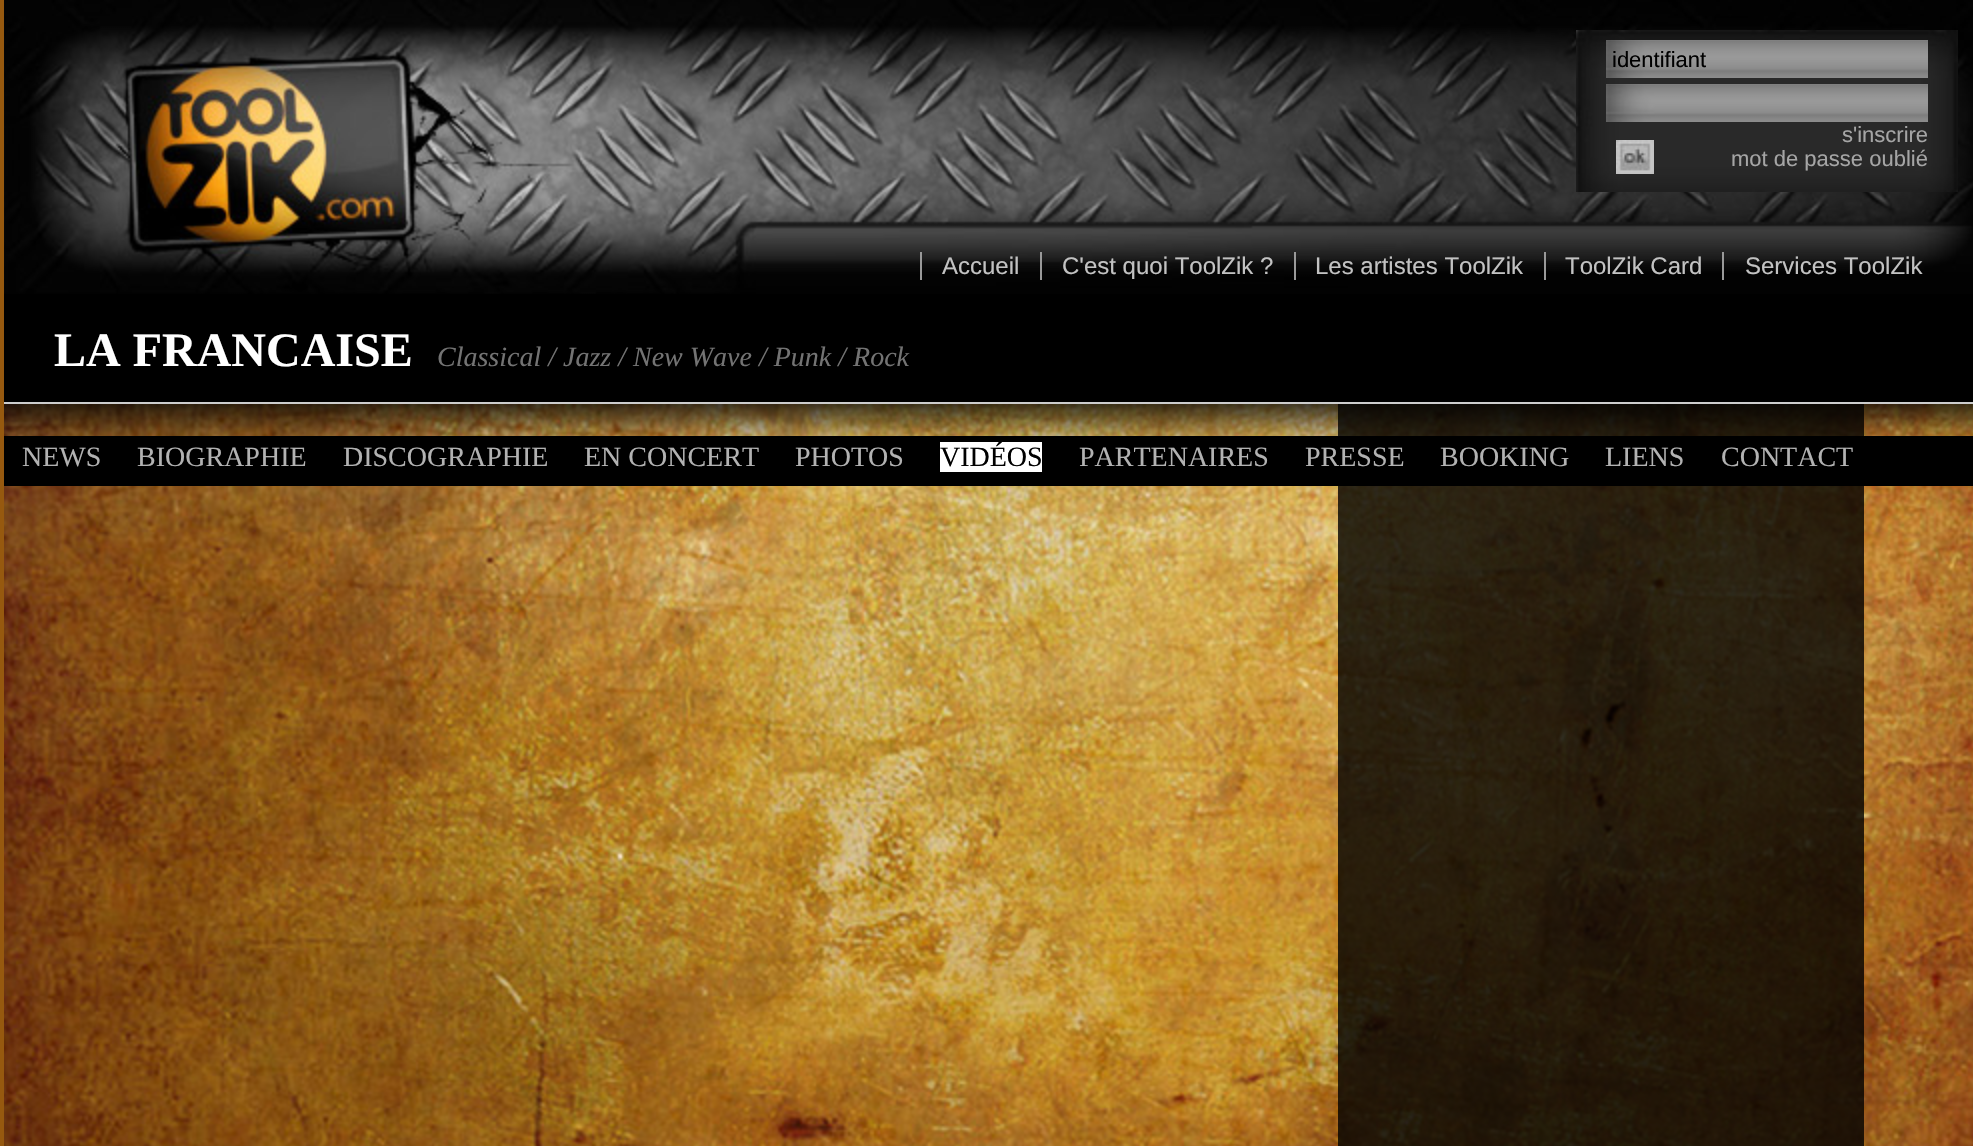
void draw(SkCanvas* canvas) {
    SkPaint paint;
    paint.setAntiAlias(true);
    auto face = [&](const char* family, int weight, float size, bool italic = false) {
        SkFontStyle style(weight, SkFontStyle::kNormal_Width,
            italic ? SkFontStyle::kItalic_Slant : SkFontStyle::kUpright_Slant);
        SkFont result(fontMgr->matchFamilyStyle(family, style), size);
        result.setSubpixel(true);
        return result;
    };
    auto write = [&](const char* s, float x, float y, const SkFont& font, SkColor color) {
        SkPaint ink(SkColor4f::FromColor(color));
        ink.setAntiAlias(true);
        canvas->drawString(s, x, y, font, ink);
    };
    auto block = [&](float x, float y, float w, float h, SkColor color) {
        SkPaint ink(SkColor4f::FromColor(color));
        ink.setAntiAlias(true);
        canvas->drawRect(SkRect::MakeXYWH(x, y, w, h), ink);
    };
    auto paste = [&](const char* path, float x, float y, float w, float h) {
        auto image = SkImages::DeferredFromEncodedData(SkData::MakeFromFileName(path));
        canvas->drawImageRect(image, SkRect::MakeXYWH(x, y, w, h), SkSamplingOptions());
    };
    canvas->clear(SK_ColorBLACK);
    paste("pic1.png", 4, 0, 1969, 294);
    paste("pic2.png", 1576, 30, 382, 162);
    paste("pic3.png", 1606, 40, 322, 38);
    auto kFont1 = face("Liberation Sans", 400, 22);
    write("identifiant", 1612, 67, kFont1, SK_ColorBLACK);
    paste("pic3.png", 1606, 84, 322, 38);
    paste("pic4.png", 1616, 140, 38, 34);
    write("s'inscrire", 1842, 142, kFont1, SkColorSetRGB(165, 165, 165));
    write("mot de passe oublié", 1731, 166, kFont1, SkColorSetRGB(165, 165, 165));
    block(920, 252, 2, 28, SkColorSetRGB(153, 153, 153));
    auto kFont2 = face("Liberation Sans", 400, 24);
    write("Accueil", 942, 274, kFont2, SkColorSetRGB(194, 194, 194));
    block(1040, 252, 2, 28, SkColorSetRGB(153, 153, 153));
    write("C'est quoi ToolZik ?", 1062, 274, kFont2, SkColorSetRGB(194, 194, 194));
    block(1294, 252, 2, 28, SkColorSetRGB(153, 153, 153));
    write("Les artistes ToolZik", 1315, 274, kFont2, SkColorSetRGB(194, 194, 194));
    block(1544, 252, 2, 28, SkColorSetRGB(153, 153, 153));
    write("ToolZik Card", 1565, 274, kFont2, SkColorSetRGB(194, 194, 194));
    block(1722, 252, 2, 28, SkColorSetRGB(153, 153, 153));
    write("Services ToolZik", 1745, 274, kFont2, SkColorSetRGB(194, 194, 194));
    block(0, 0, 4, 1146, SkColorSetRGB(150, 89, 15));
    auto kFont3 = face("Liberation Serif", 700, 48);
    write("LA FRANCAISE", 54, 366, kFont3, SK_ColorWHITE);
    auto kFont4 = face("Liberation Serif", 400, 28, true);
    write("Classical / Jazz / New Wave / Punk / Rock", 437, 366, kFont4, SkColorSetRGB(115, 115, 115));
    paste("pic5.png", 4, 404, 1969, 742);
    block(4, 402, 1969, 2, SkColorSetRGB(205, 205, 205));
    paste("pic6.png", 4, 404, 1969, 32);
    block(1338, 404, 526, 742, SkColorSetARGB(204, 0, 0, 0));
    block(4, 436, 1969, 50, SK_ColorBLACK);
    auto kFont5 = face("Liberation Serif", 400, 28);
    write("NEWS", 22, 466, kFont5, SkColorSetRGB(178, 178, 178));
    write("BIOGRAPHIE", 137, 466, kFont5, SkColorSetRGB(178, 178, 178));
    write("DISCOGRAPHIE", 343, 466, kFont5, SkColorSetRGB(178, 178, 178));
    write("EN CONCERT", 584, 466, kFont5, SkColorSetRGB(178, 178, 178));
    write("PHOTOS", 795, 466, kFont5, SkColorSetRGB(178, 178, 178));
    block(940, 442, 102, 30, SK_ColorWHITE);
    write("VIDÉOS", 940, 466, kFont5, SK_ColorBLACK);
    write("PARTENAIRES", 1079, 466, kFont5, SkColorSetRGB(178, 178, 178));
    write("PRESSE", 1305, 466, kFont5, SkColorSetRGB(178, 178, 178));
    write("BOOKING", 1440, 466, kFont5, SkColorSetRGB(178, 178, 178));
    write("LIENS", 1605, 466, kFont5, SkColorSetRGB(178, 178, 178));
    write("CONTACT", 1721, 466, kFont5, SkColorSetRGB(178, 178, 178));
}
